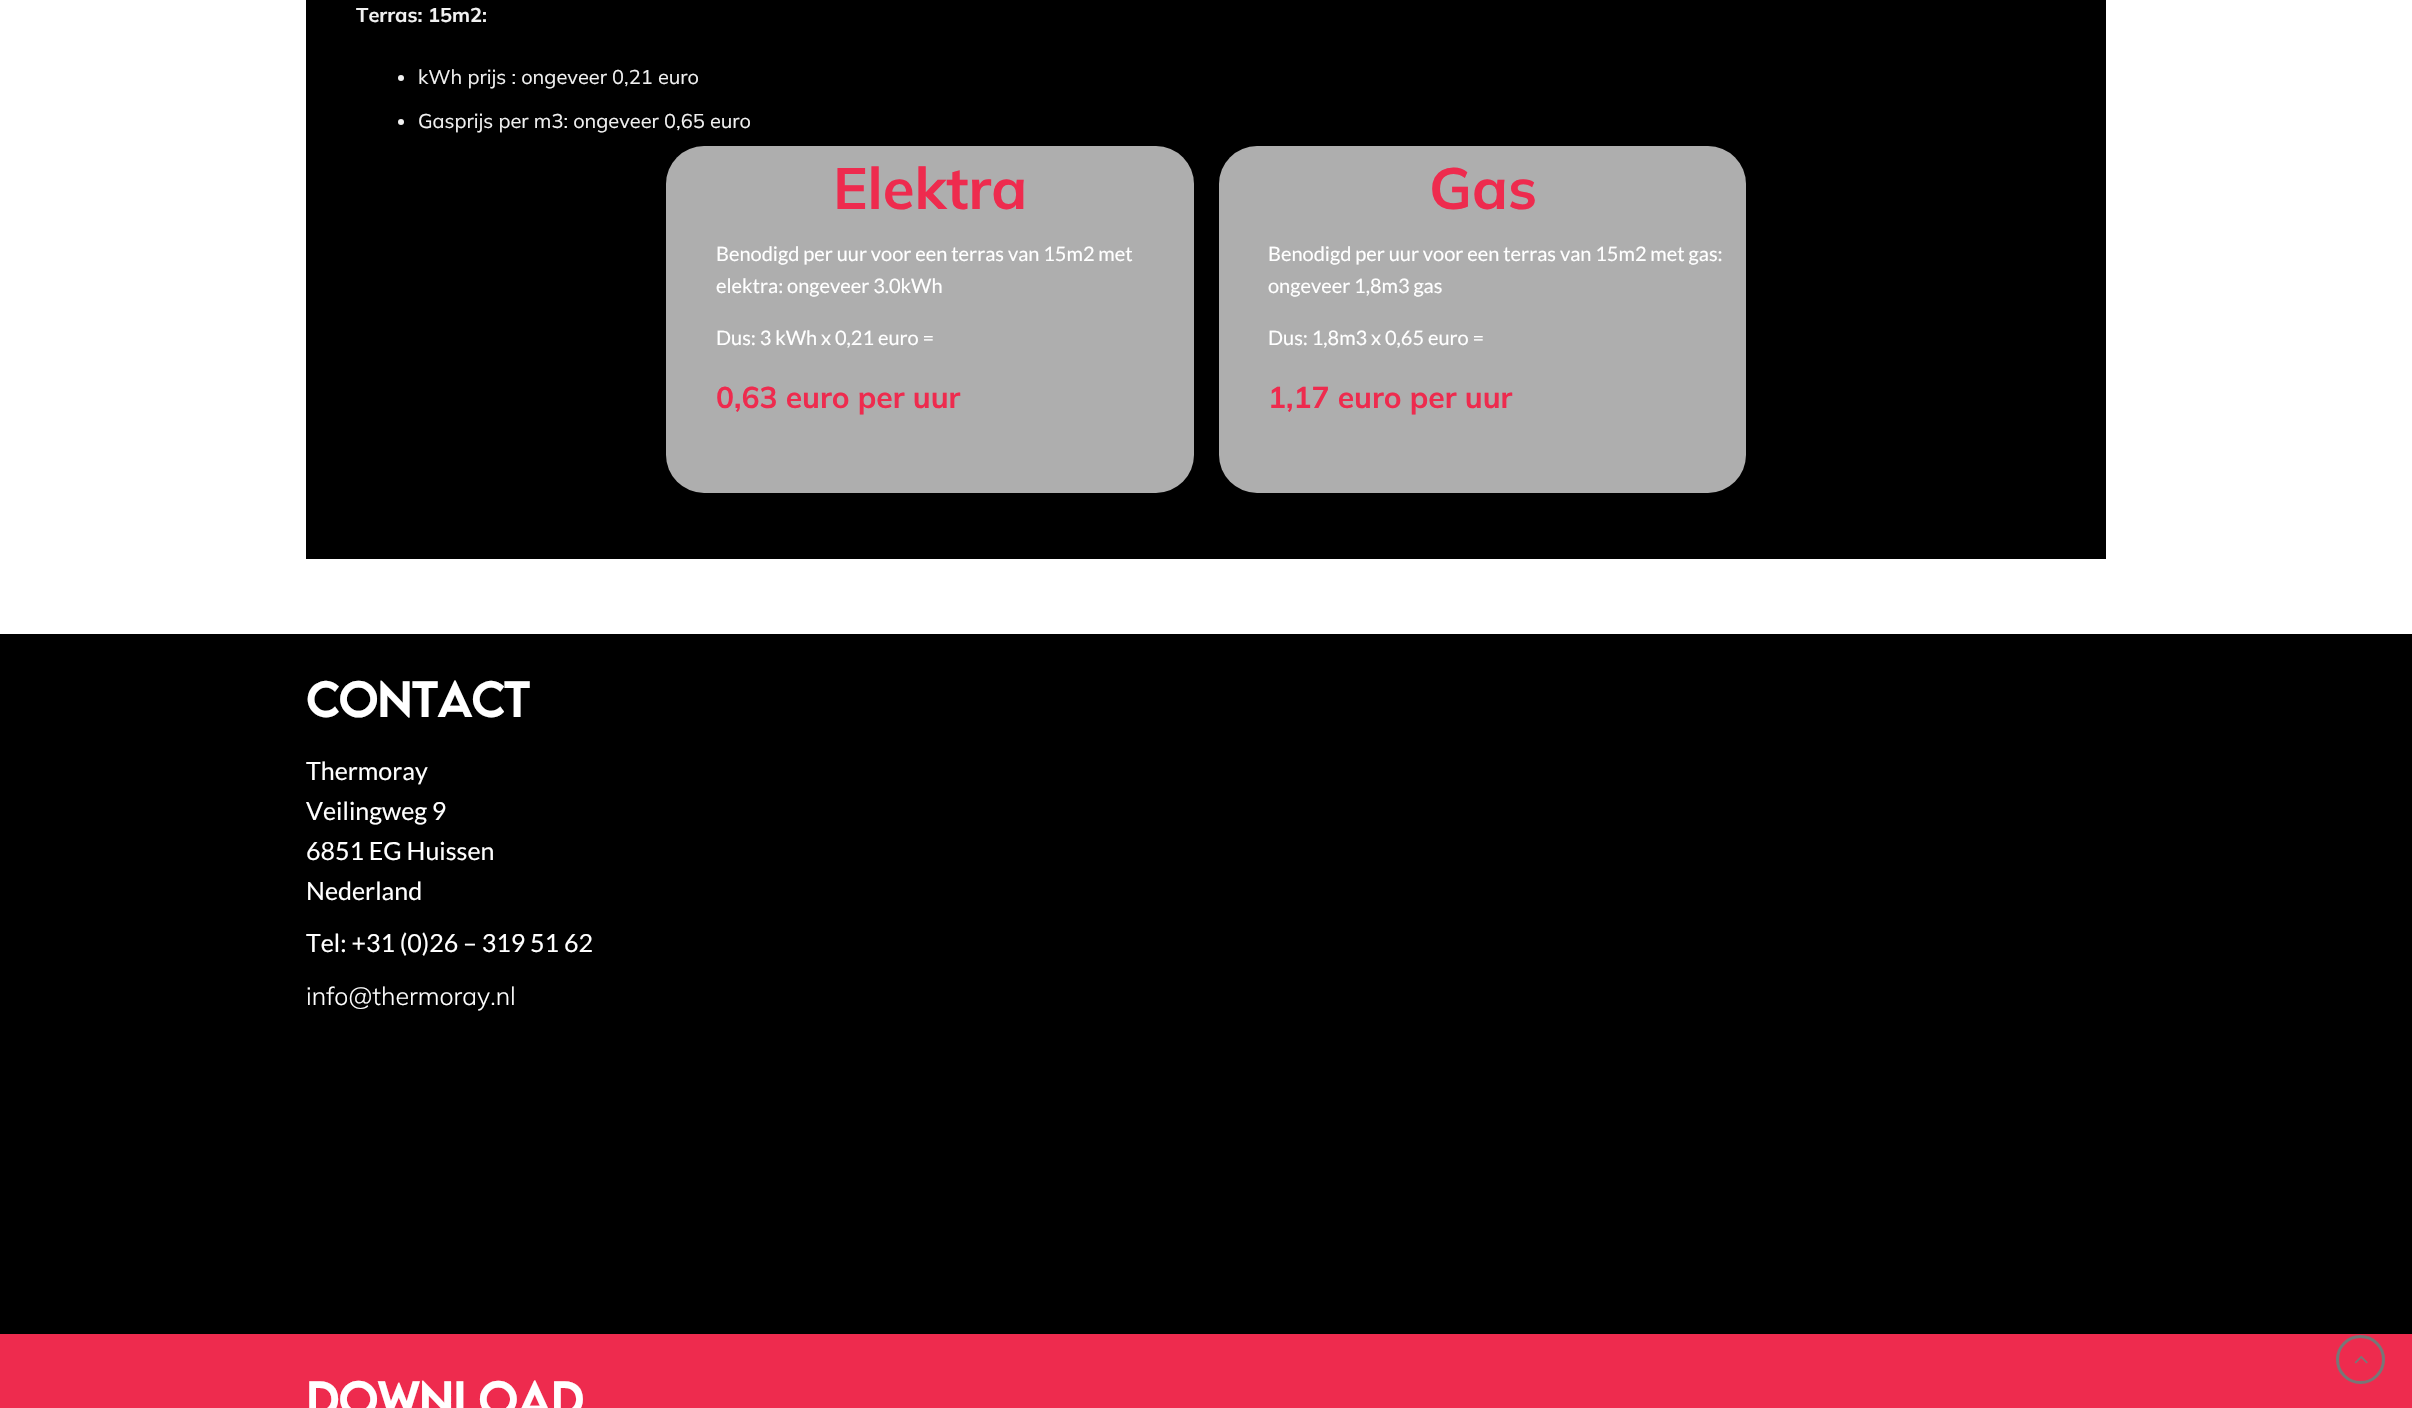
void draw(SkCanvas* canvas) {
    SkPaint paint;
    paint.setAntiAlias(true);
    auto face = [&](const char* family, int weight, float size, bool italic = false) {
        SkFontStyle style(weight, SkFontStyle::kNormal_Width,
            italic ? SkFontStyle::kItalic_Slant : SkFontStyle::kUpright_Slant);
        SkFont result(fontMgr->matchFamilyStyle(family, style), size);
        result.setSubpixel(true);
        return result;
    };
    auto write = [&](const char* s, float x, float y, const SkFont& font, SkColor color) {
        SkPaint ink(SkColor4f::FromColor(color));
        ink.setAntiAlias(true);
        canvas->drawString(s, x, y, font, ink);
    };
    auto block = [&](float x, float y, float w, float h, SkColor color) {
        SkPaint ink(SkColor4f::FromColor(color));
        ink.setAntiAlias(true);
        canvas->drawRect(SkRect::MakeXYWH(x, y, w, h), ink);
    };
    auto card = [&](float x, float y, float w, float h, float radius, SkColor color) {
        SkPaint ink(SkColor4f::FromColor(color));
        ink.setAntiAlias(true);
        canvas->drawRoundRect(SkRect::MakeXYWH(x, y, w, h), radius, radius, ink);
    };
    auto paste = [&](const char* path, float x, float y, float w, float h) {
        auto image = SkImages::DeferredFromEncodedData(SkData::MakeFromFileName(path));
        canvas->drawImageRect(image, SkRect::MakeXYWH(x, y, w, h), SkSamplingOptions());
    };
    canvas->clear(SK_ColorWHITE);
    block(306, 0, 1800, 559, SK_ColorBLACK);
    auto kFont1 = face("Mulish", 700, 20);
    write("Terras: 15m2:", 356, 22, kFont1, SkColorSetRGB(241, 241, 241));
    paint.setColor(SkColorSetRGB(241, 241, 241));
    canvas->drawCircle(401, 78, 3, paint);
    auto kFont2 = face("Mulish", 400, 20);
    write("kWh prijs : ongeveer 0,21 euro", 418, 84, kFont2, SkColorSetRGB(241, 241, 241));
    canvas->drawCircle(401, 122, 3, paint);
    write("Gasprijs per m3: ongeveer 0,65 euro", 418, 128, kFont2, SkColorSetRGB(241, 241, 241));
    card(666, 146, 528, 347, 38, SkColorSetRGB(174, 174, 174));
    auto kFont3 = face("Mulish", 700, 58);
    write("Elektra", 833, 209, kFont3, SkColorSetRGB(238, 43, 78));
    auto kFont4 = face("Lato", 400, 20);
    write("Benodigd per uur voor een terras van 15m2 met", 716, 261, kFont4, SK_ColorWHITE);
    write("elektra: ongeveer 3.0kWh", 716, 293, kFont4, SK_ColorWHITE);
    write("Dus: 3 kWh x 0,21 euro =", 716, 345, kFont4, SK_ColorWHITE);
    auto kFont5 = face("Mulish", 700, 30);
    write("0,63 euro per uur", 716, 408, kFont5, SkColorSetRGB(238, 43, 78));
    card(1219, 146, 527, 347, 38, SkColorSetRGB(174, 174, 174));
    write("Gas", 1429, 209, kFont3, SkColorSetRGB(238, 43, 78));
    write("Benodigd per uur voor een terras van 15m2 met gas:", 1268, 261, kFont4, SK_ColorWHITE);
    write("ongeveer 1,8m3 gas", 1268, 293, kFont4, SK_ColorWHITE);
    write("Dus: 1,8m3 x 0,65 euro =", 1268, 345, kFont4, SK_ColorWHITE);
    write("1,17 euro per uur", 1268, 408, kFont5, SkColorSetRGB(238, 43, 78));
    block(0, 634, 2412, 700, SK_ColorBLACK);
    auto kFont6 = face("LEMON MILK", 700, 43.75f);
    write("Contact", 306, 717, kFont6, SK_ColorWHITE);
    auto kFont7 = face("Lato", 400, 25);
    write("Thermoray", 306, 780, kFont7, SK_ColorWHITE);
    write("Veilingweg 9", 306, 820, kFont7, SK_ColorWHITE);
    write("6851 EG Huissen", 306, 860, kFont7, SK_ColorWHITE);
    write("Nederland", 306, 900, kFont7, SK_ColorWHITE);
    write("Tel: +31 (0)26 – 319 51 62", 306, 952, kFont7, SK_ColorWHITE);
    auto kFont8 = face("Mulish", 300, 25);
    write("info@thermoray.nl", 306, 1005, kFont8, SK_ColorWHITE);
    block(0, 1334, 2412, 74, SkColorSetRGB(238, 43, 78));
    write("Download", 306, 1417, kFont6, SK_ColorWHITE);
    paint.setStyle(SkPaint::kStroke_Style);
    paint.setStrokeWidth(3);
    paint.setColor(SkColorSetRGB(119, 119, 119));
    canvas->drawCircle(2360.5f, 1359.5f, 23, paint);
    paste("pic1.png", 2354, 1355, 14, 9);
}
